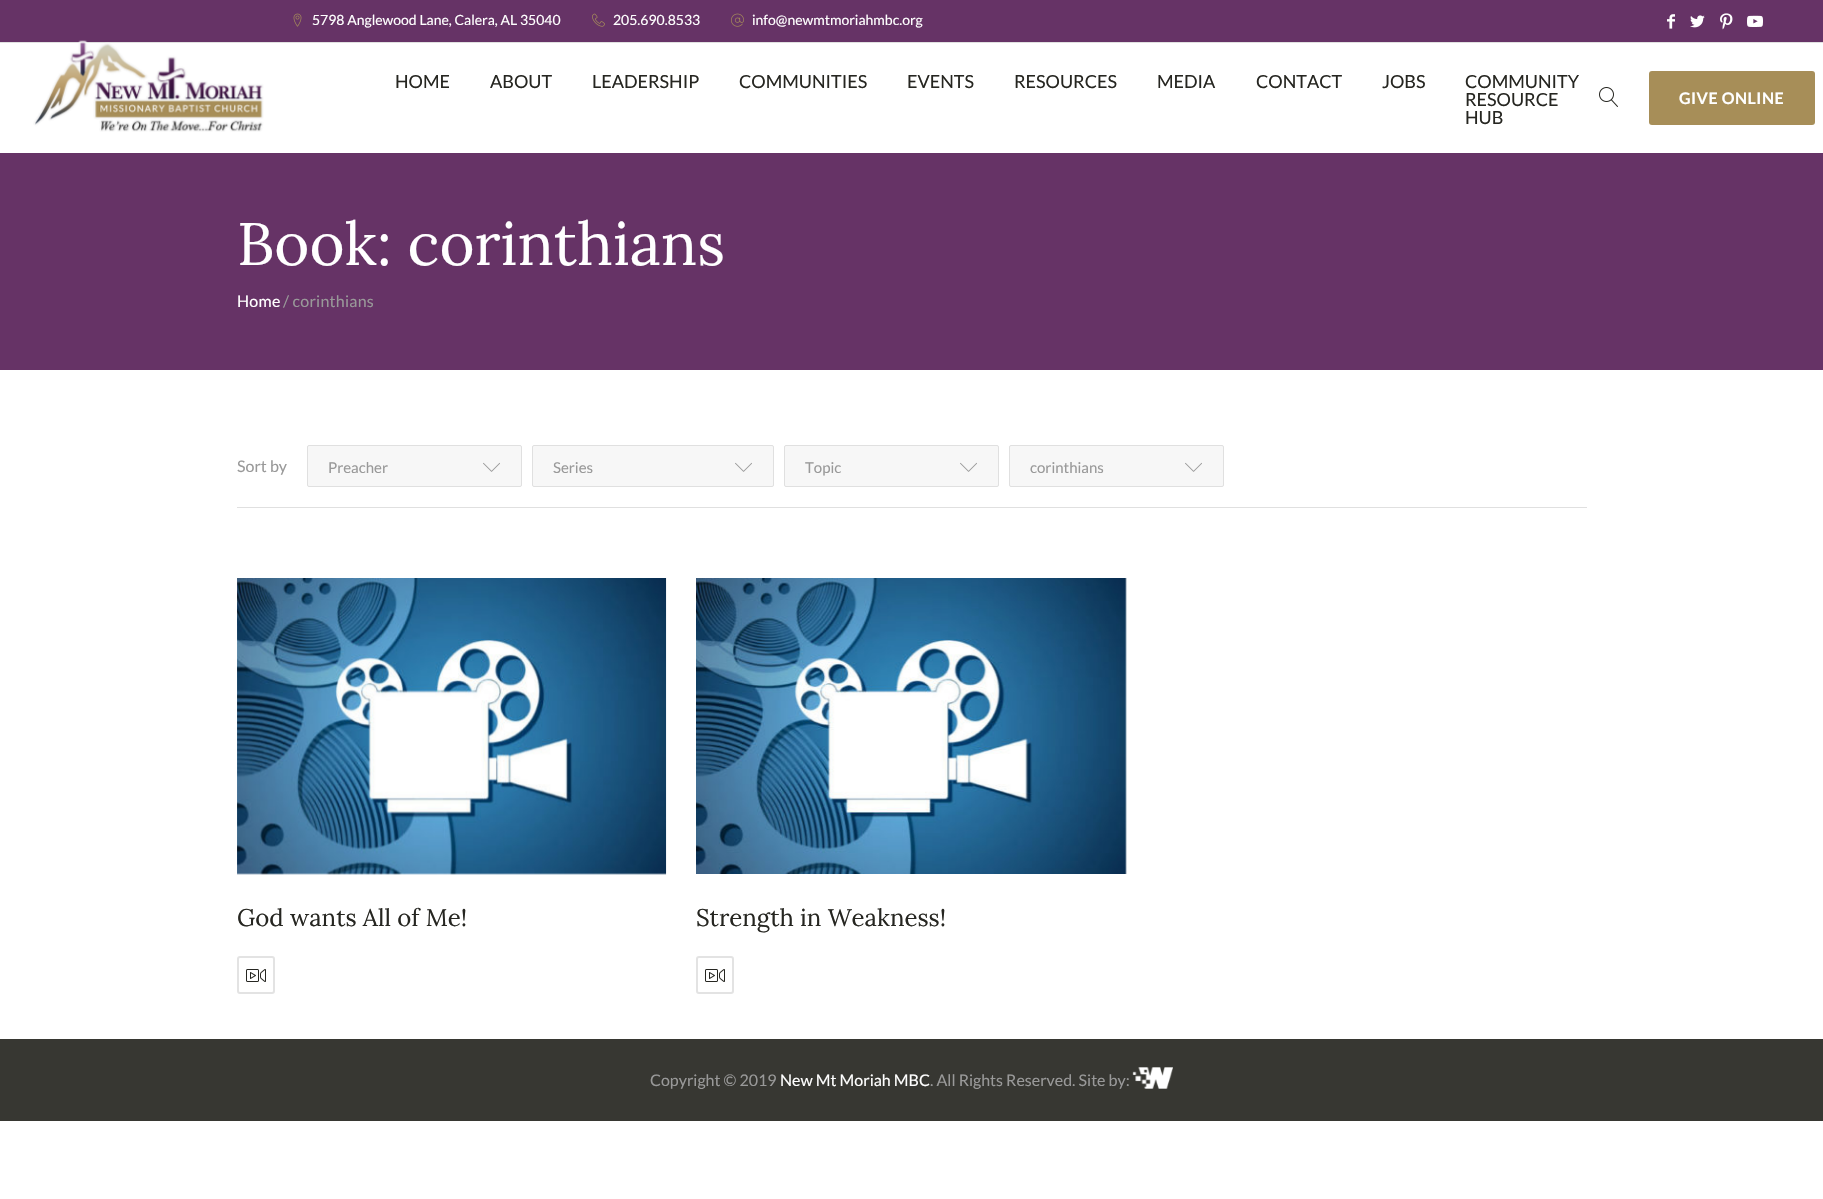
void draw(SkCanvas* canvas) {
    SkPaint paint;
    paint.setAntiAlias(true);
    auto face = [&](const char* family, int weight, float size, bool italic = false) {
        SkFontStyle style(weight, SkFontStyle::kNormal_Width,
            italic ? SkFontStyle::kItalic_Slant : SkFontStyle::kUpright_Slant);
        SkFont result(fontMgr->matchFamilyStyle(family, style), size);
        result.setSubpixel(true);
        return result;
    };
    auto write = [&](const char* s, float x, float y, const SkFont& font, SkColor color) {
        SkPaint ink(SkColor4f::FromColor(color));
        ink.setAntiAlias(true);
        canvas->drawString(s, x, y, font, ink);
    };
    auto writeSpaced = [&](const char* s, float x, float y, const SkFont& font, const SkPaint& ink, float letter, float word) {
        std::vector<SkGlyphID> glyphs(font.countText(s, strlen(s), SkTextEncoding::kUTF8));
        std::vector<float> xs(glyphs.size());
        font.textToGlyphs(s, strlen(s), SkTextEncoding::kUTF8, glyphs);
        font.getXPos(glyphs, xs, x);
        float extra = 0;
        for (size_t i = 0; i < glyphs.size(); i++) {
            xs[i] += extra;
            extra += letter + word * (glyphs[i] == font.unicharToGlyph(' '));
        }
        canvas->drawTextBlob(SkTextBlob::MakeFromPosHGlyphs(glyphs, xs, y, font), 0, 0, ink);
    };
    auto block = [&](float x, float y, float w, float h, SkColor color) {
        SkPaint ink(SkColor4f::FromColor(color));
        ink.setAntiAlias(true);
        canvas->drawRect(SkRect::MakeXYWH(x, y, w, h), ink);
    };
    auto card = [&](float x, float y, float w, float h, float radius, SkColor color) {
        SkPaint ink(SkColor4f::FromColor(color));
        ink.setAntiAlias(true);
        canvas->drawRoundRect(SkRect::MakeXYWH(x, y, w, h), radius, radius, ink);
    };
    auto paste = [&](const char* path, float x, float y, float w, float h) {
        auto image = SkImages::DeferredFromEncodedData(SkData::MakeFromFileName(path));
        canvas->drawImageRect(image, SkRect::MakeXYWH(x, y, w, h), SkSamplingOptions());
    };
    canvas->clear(SK_ColorWHITE);
    block(0, 0, 1823, 42, SkColorSetRGB(102, 51, 102));
    block(0, 42, 1823, 1, SkColorSetRGB(224, 224, 224));
    paste("pic1.png", 293, 13, 9, 14);
    auto kFont1 = face("Lato", 400, 14);
    write("5798 Anglewood Lane, Calera, AL 35040", 312, 25, kFont1, SK_ColorWHITE);
    paste("pic2.png", 592, 13, 13, 14);
    write("205.690.8533", 613, 25, kFont1, SK_ColorWHITE);
    paste("pic3.png", 731, 13, 13, 14);
    write("info@newmtmoriahmbc.org", 752, 25, kFont1, SK_ColorWHITE);
    paste("pic4.png", 1667, 14, 8, 15);
    paste("pic5.png", 1690, 15, 15, 13);
    paste("pic6.png", 1720, 13, 13, 17);
    paste("pic7.png", 1747, 15, 16, 12);
    paste("pic8.png", 33, 40, 231, 92);
    auto kFont2 = face("Lato", 400, 18);
    write("HOME", 395, 88, kFont2, SkColorSetRGB(38, 38, 33));
    write("ABOUT", 490, 88, kFont2, SkColorSetRGB(38, 38, 33));
    write("LEADERSHIP", 592, 88, kFont2, SkColorSetRGB(38, 38, 33));
    write("COMMUNITIES", 739, 88, kFont2, SkColorSetRGB(38, 38, 33));
    write("EVENTS", 907, 88, kFont2, SkColorSetRGB(38, 38, 33));
    write("RESOURCES", 1014, 88, kFont2, SkColorSetRGB(38, 38, 33));
    write("MEDIA", 1157, 88, kFont2, SkColorSetRGB(38, 38, 33));
    write("CONTACT", 1256, 88, kFont2, SkColorSetRGB(38, 38, 33));
    write("JOBS", 1382, 88, kFont2, SkColorSetRGB(38, 38, 33));
    write("COMMUNITY", 1465, 88, kFont2, SkColorSetRGB(38, 38, 33));
    write("RESOURCE", 1465, 106, kFont2, SkColorSetRGB(38, 38, 33));
    write("HUB", 1465, 124, kFont2, SkColorSetRGB(38, 38, 33));
    paste("pic9.png", 1599, 87, 19, 20);
    card(1649, 71, 166, 54, 3, SkColorSetRGB(167, 142, 88));
    auto kFont3 = face("Lato", 700, 16);
    paint.setColor(SK_ColorWHITE);
    writeSpaced("GIVE ONLINE", 1679, 104, kFont3, paint, 0.5f, 0);
    block(0, 153, 1823, 217, SkColorSetRGB(102, 51, 102));
    auto kFont4 = face("Lora", 400, 60);
    write("Book: corinthians", 237, 265, kFont4, SK_ColorWHITE);
    auto kFont5 = face("Lato", 400, 16);
    writeSpaced("Home", 237, 307, kFont5, paint, 0.25f, 0);
    paint.setColor(SkColorSetRGB(153, 153, 153));
    writeSpaced("/ corinthians", 283, 307, kFont5, paint, 0.25f, 0);
    block(237, 507, 1350, 1, SkColorSetRGB(224, 224, 224));
    write("Sort by", 237, 472, kFont5, SkColorSetRGB(153, 153, 153));
    paint.setColor(SkColorSetRGB(247, 247, 247));
    canvas->drawRoundRect(SkRect::MakeXYWH(307.5f, 445.5f, 214, 41), 1.5f, 1.5f, paint);
    paint.setStyle(SkPaint::kStroke_Style);
    paint.setStrokeWidth(1);
    paint.setColor(SkColorSetRGB(224, 224, 224));
    canvas->drawRoundRect(SkRect::MakeXYWH(307.5f, 445.5f, 214, 41), 1.5f, 1.5f, paint);
    auto kFont6 = face("Lato", 400, 15);
    write("Preacher", 328, 473, kFont6, SkColorSetRGB(153, 153, 153));
    paste("pic10.png", 483, 462, 17, 10);
    paint.setStyle(SkPaint::kFill_Style);
    paint.setColor(SkColorSetRGB(247, 247, 247));
    canvas->drawRoundRect(SkRect::MakeXYWH(532.5f, 445.5f, 241, 41), 1.5f, 1.5f, paint);
    paint.setStyle(SkPaint::kStroke_Style);
    paint.setColor(SkColorSetRGB(224, 224, 224));
    canvas->drawRoundRect(SkRect::MakeXYWH(532.5f, 445.5f, 241, 41), 1.5f, 1.5f, paint);
    write("Series", 553, 473, kFont6, SkColorSetRGB(153, 153, 153));
    paste("pic10.png", 735, 462, 17, 10);
    paint.setStyle(SkPaint::kFill_Style);
    paint.setColor(SkColorSetRGB(247, 247, 247));
    canvas->drawRoundRect(SkRect::MakeXYWH(784.5f, 445.5f, 214, 41), 1.5f, 1.5f, paint);
    paint.setStyle(SkPaint::kStroke_Style);
    paint.setColor(SkColorSetRGB(224, 224, 224));
    canvas->drawRoundRect(SkRect::MakeXYWH(784.5f, 445.5f, 214, 41), 1.5f, 1.5f, paint);
    write("Topic", 805, 473, kFont6, SkColorSetRGB(153, 153, 153));
    paste("pic10.png", 960, 462, 17, 10);
    paint.setStyle(SkPaint::kFill_Style);
    paint.setColor(SkColorSetRGB(247, 247, 247));
    canvas->drawRoundRect(SkRect::MakeXYWH(1009.5f, 445.5f, 214, 41), 1.5f, 1.5f, paint);
    paint.setStyle(SkPaint::kStroke_Style);
    paint.setColor(SkColorSetRGB(224, 224, 224));
    canvas->drawRoundRect(SkRect::MakeXYWH(1009.5f, 445.5f, 214, 41), 1.5f, 1.5f, paint);
    write("corinthians", 1030, 473, kFont6, SkColorSetRGB(153, 153, 153));
    paste("pic10.png", 1185, 462, 17, 10);
    paste("pic11.png", 237, 578, 430, 297);
    auto kFont7 = face("Lora", 400, 24);
    write("God wants All of Me!", 237, 926, kFont7, SkColorSetRGB(38, 38, 33));
    paint.setStrokeWidth(2);
    paint.setColor(SkColorSetRGB(227, 227, 227));
    canvas->drawRoundRect(SkRect::MakeXYWH(238, 957, 36, 36), 2, 2, paint);
    paste("pic12.png", 246, 969, 20, 13);
    paste("pic13.png", 696, 578, 431, 296);
    write("Strength in Weakness!", 696, 926, kFont7, SkColorSetRGB(38, 38, 33));
    canvas->drawRoundRect(SkRect::MakeXYWH(697, 957, 36, 36), 2, 2, paint);
    paste("pic12.png", 705, 969, 20, 13);
    block(0, 1039, 1823, 82, SkColorSetRGB(55, 55, 50));
    write("Copyright © 2019", 650, 1086, kFont5, SkColorSetRGB(153, 153, 153));
    write("New Mt Moriah MBC", 780, 1086, kFont5, SK_ColorWHITE);
    write(". All Rights Reserved. Site by:", 930, 1086, kFont5, SkColorSetRGB(153, 153, 153));
    paste("pic14.png", 1132, 1067, 41, 22);
}
